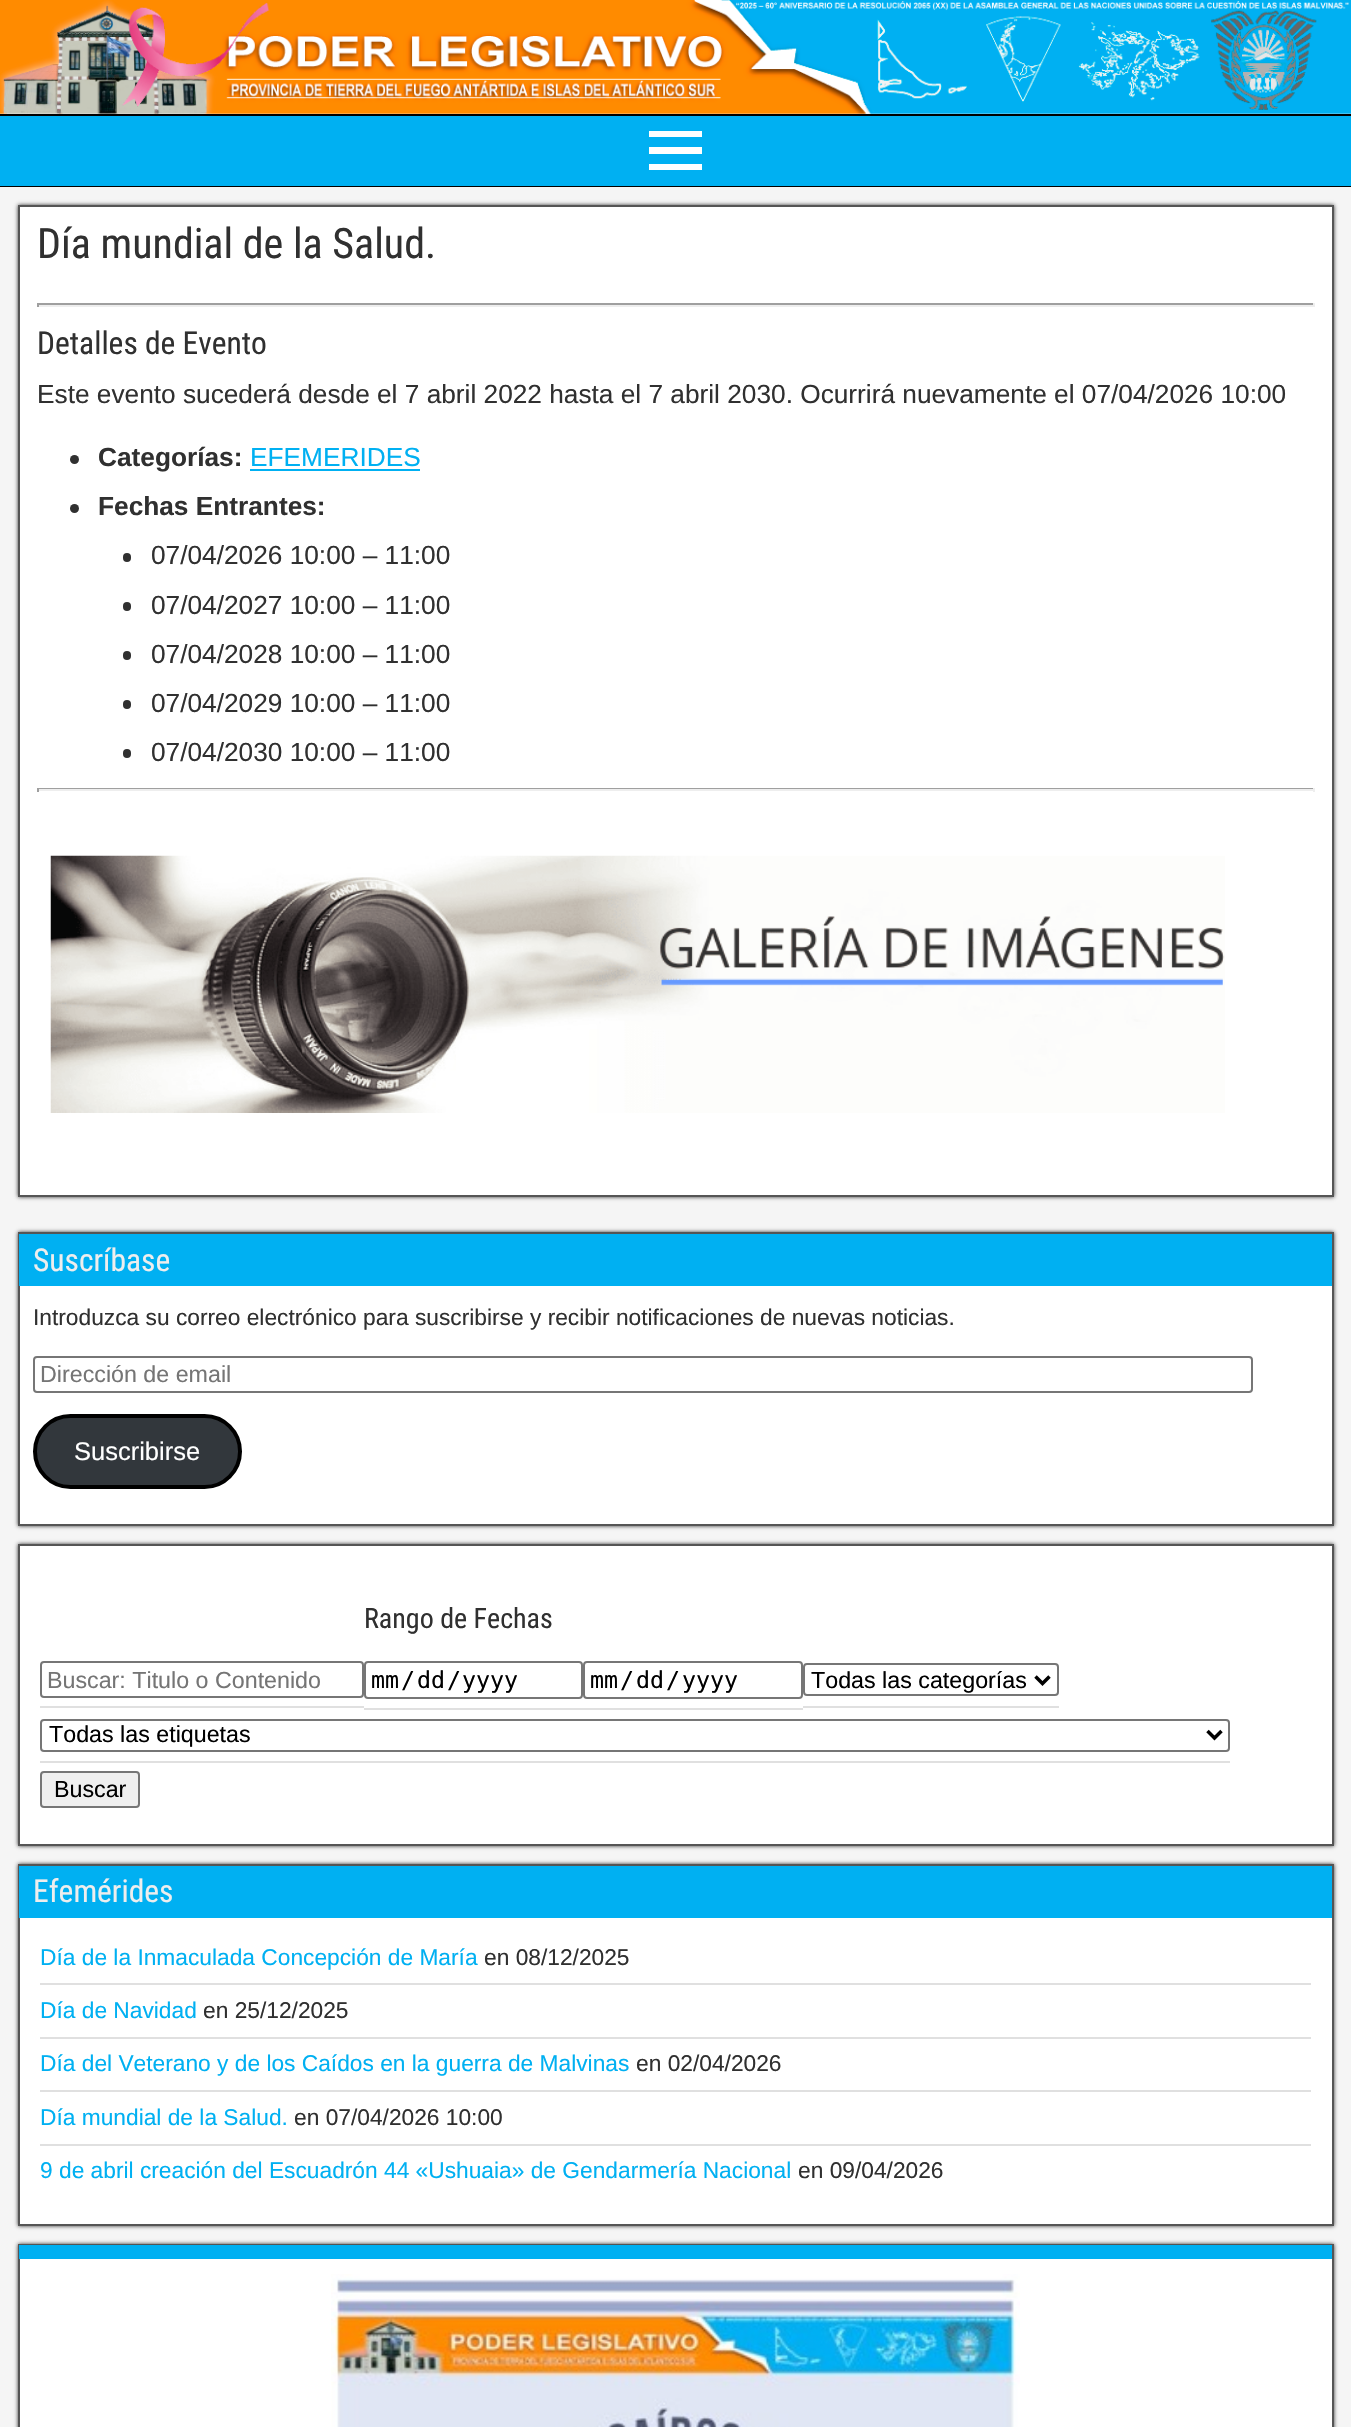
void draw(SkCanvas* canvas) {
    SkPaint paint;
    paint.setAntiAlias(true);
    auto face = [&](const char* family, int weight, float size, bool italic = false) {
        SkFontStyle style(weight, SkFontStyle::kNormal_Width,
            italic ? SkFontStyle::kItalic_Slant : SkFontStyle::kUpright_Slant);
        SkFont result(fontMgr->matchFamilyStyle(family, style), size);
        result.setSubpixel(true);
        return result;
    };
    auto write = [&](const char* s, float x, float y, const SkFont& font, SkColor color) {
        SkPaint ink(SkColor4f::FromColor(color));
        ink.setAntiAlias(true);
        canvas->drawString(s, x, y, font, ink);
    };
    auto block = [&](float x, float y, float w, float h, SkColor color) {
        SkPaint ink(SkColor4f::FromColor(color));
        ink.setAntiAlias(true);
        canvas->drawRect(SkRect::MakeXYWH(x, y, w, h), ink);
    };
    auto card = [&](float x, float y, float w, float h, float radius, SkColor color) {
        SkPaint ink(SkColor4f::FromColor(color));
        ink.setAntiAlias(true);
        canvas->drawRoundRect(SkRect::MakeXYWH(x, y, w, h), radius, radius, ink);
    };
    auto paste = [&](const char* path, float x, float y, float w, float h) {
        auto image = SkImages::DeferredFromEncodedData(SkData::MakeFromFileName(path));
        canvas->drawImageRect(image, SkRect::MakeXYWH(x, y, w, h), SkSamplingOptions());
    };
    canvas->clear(SK_ColorWHITE);
    block(0, 114, 1351, 2, SK_ColorBLACK);
    paste("pic1.png", 0, 0, 1351, 114);
    block(0, 116, 1351, 70, SkColorSetRGB(0, 176, 242));
    block(0, 186, 1351, 1, SK_ColorBLACK);
    paint.setColor(SK_ColorWHITE);
    canvas->drawPath(SkPathBuilder().moveTo(649, 170).lineTo(649, 164).lineTo(702, 164).lineTo(702, 170).close().moveTo(649, 131).lineTo(702, 131).lineTo(702, 137).lineTo(649, 137).close().moveTo(649, 154).lineTo(649, 147).lineTo(702, 147).lineTo(702, 154).close().detach(), paint);
    block(0, 187, 1351, 2240, SkColorSetRGB(245, 245, 245));
    paint.setColor(SkColorSetRGB(51, 51, 51));
    paint.setMaskFilter(SkMaskFilter::MakeBlur(kNormal_SkBlurStyle, 2));
    canvas->drawRect(SkRect::MakeXYWH(18, 205, 1316, 992), paint);
    paint.setMaskFilter(nullptr);
    paint.setColor(SK_ColorWHITE);
    canvas->drawRect(SkRect::MakeXYWH(19, 206, 1314, 990), paint);
    paint.setStyle(SkPaint::kStroke_Style);
    paint.setStrokeWidth(2);
    paint.setColor(SkColorSetRGB(85, 85, 85));
    canvas->drawRect(SkRect::MakeXYWH(19, 206, 1314, 990), paint);
    auto kFont1 = face("Roboto Condensed", 400, 42);
    write("Día mundial de la Salud.", 37, 258, kFont1, SkColorSetRGB(48, 48, 48));
    block(37, 303, 1277, 2, SkColorSetRGB(159, 159, 159));
    block(1313, 303, 2, 4, SkColorSetRGB(238, 238, 238));
    block(37, 305, 1277, 2, SkColorSetRGB(238, 238, 238));
    block(37, 303, 2, 4, SkColorSetRGB(159, 159, 159));
    auto kFont2 = face("Roboto Condensed", 400, 31.5f);
    write("Detalles de Evento", 37, 354, kFont2, SkColorSetRGB(48, 48, 48));
    auto kFont3 = face("Arimo", 400, 26.25f);
    write("Este evento sucederá desde el 7 abril 2022 hasta el 7 abril 2030. Ocurrirá nuevamente el 07/04/2026 10:00", 37, 403, kFont3, SkColorSetRGB(48, 48, 48));
    paint.setStyle(SkPaint::kFill_Style);
    paint.setColor(SkColorSetRGB(48, 48, 48));
    canvas->drawCircle(74.5f, 459.5f, 4.5f, paint);
    auto kFont4 = face("Arimo", 700, 26.25f);
    write("Categorías:", 98, 466, kFont4, SkColorSetRGB(48, 48, 48));
    write("EFEMERIDES", 250, 466, kFont3, SkColorSetRGB(0, 176, 242));
    block(250, 469, 170, 2, SkColorSetRGB(0, 176, 242));
    canvas->drawCircle(74.5f, 508.5f, 4.5f, paint);
    write("Fechas Entrantes:", 98, 515, kFont4, SkColorSetRGB(48, 48, 48));
    card(123, 553, 8, 9, 4, SkColorSetRGB(48, 48, 48));
    write("07/04/2026 10:00 – 11:00", 151, 564, kFont3, SkColorSetRGB(48, 48, 48));
    card(123, 602, 8, 9, 4, SkColorSetRGB(48, 48, 48));
    write("07/04/2027 10:00 – 11:00", 151, 614, kFont3, SkColorSetRGB(48, 48, 48));
    card(123, 651, 8, 9, 4, SkColorSetRGB(48, 48, 48));
    write("07/04/2028 10:00 – 11:00", 151, 663, kFont3, SkColorSetRGB(48, 48, 48));
    card(123, 700, 8, 9, 4, SkColorSetRGB(48, 48, 48));
    write("07/04/2029 10:00 – 11:00", 151, 712, kFont3, SkColorSetRGB(48, 48, 48));
    card(123, 749, 8, 9, 4, SkColorSetRGB(48, 48, 48));
    write("07/04/2030 10:00 – 11:00", 151, 761, kFont3, SkColorSetRGB(48, 48, 48));
    block(37, 788, 1277, 1, SkColorSetRGB(159, 159, 159));
    block(1313, 788, 2, 4, SkColorSetRGB(238, 238, 238));
    block(37, 789, 1277, 2, SkColorSetRGB(238, 238, 238));
    block(37, 788, 2, 4, SkColorSetRGB(159, 159, 159));
    paste("pic2.png", 50, 855, 1175, 258);
    paint.setColor(SkColorSetRGB(51, 51, 51));
    paint.setMaskFilter(SkMaskFilter::MakeBlur(kNormal_SkBlurStyle, 2));
    canvas->drawRect(SkRect::MakeXYWH(18, 1232, 1316, 294), paint);
    paint.setMaskFilter(nullptr);
    block(20, 1286, 1312, 238, SK_ColorWHITE);
    paint.setStyle(SkPaint::kStroke_Style);
    paint.setColor(SkColorSetRGB(85, 85, 85));
    canvas->drawRect(SkRect::MakeXYWH(19, 1233, 1314, 292), paint);
    block(19, 1234, 1313, 52, SkColorSetRGB(0, 176, 242));
    write("Suscríbase", 33, 1271, kFont2, SkColorSetRGB(238, 238, 238));
    auto kFont5 = face("Liberation Sans", 400, 22.75f);
    write("Introduzca su correo electrónico para suscribirse y recibir notificaciones de nuevas noticias.", 33, 1325, kFont5, SkColorSetRGB(48, 48, 48));
    paint.setColor(SkColorSetRGB(118, 118, 118));
    canvas->drawRoundRect(SkRect::MakeXYWH(34, 1357, 1218, 35), 3, 3, paint);
    auto kFont6 = face("Liberation Sans", 400, 23.25f);
    write("Dirección de email", 40, 1382, kFont6, SkColorSetRGB(117, 117, 117));
    paint.setStyle(SkPaint::kFill_Style);
    paint.setColor(SkColorSetRGB(50, 55, 60));
    canvas->drawRoundRect(SkRect::MakeXYWH(35, 1416, 205, 71), 35.5f, 35.5f, paint);
    paint.setStyle(SkPaint::kStroke_Style);
    paint.setStrokeWidth(4);
    paint.setColor(SK_ColorBLACK);
    canvas->drawRoundRect(SkRect::MakeXYWH(35, 1416, 205, 71), 35.5f, 35.5f, paint);
    auto kFont7 = face("Liberation Sans", 400, 25.5f);
    write("Suscribirse", 74, 1460, kFont7, SK_ColorWHITE);
    paint.setStyle(SkPaint::kFill_Style);
    paint.setColor(SkColorSetRGB(51, 51, 51));
    paint.setMaskFilter(SkMaskFilter::MakeBlur(kNormal_SkBlurStyle, 2));
    canvas->drawRect(SkRect::MakeXYWH(18, 1544, 1316, 302), paint);
    paint.setMaskFilter(nullptr);
    paint.setColor(SK_ColorWHITE);
    canvas->drawRect(SkRect::MakeXYWH(19, 1545, 1314, 300), paint);
    paint.setStyle(SkPaint::kStroke_Style);
    paint.setStrokeWidth(2);
    paint.setColor(SkColorSetRGB(85, 85, 85));
    canvas->drawRect(SkRect::MakeXYWH(19, 1545, 1314, 300), paint);
    block(40, 1706, 324, 2, SkColorSetRGB(224, 224, 224));
    paint.setColor(SkColorSetRGB(118, 118, 118));
    canvas->drawRoundRect(SkRect::MakeXYWH(41, 1662, 322, 35), 3, 3, paint);
    write("Buscar: Titulo o Contenido", 47, 1688, kFont6, SkColorSetRGB(117, 117, 117));
    block(364, 1708, 439, 2, SkColorSetRGB(224, 224, 224));
    auto kFont8 = face("Roboto Condensed", 400, 28);
    write("Rango de Fechas", 364, 1628, kFont8, SkColorSetRGB(48, 48, 48));
    canvas->drawRoundRect(SkRect::MakeXYWH(365, 1662, 217, 36), 3, 3, paint);
    auto kFont9 = face("DejaVu Sans Mono", 400, 23.25f);
    write("mm", 371, 1688, kFont9, SK_ColorBLACK);
    write("/", 401, 1688, kFont9, SK_ColorBLACK);
    write("dd", 417, 1688, kFont9, SK_ColorBLACK);
    write("/", 447, 1688, kFont9, SK_ColorBLACK);
    write("yyyy", 462, 1688, kFont9, SK_ColorBLACK);
    canvas->drawRoundRect(SkRect::MakeXYWH(584, 1662, 218, 36), 3, 3, paint);
    write("mm", 590, 1688, kFont9, SK_ColorBLACK);
    write("/", 620, 1688, kFont9, SK_ColorBLACK);
    write("dd", 636, 1688, kFont9, SK_ColorBLACK);
    write("/", 666, 1688, kFont9, SK_ColorBLACK);
    write("yyyy", 682, 1688, kFont9, SK_ColorBLACK);
    block(803, 1706, 256, 2, SkColorSetRGB(224, 224, 224));
    canvas->drawRoundRect(SkRect::MakeXYWH(804, 1664, 254, 31), 3, 3, paint);
    paint.setStrokeWidth(3.5f);
    paint.setColor(SK_ColorBLACK);
    canvas->drawPath(SkPathBuilder().moveTo(1035.5f, 1676.5f).lineTo(1042.5f, 1683.5f).lineTo(1049.5f, 1676.5f).detach(), paint);
    write("Todas las categorías", 811, 1688, kFont6, SK_ColorBLACK);
    block(40, 1761, 1190, 2, SkColorSetRGB(224, 224, 224));
    paint.setStrokeWidth(2);
    paint.setColor(SkColorSetRGB(118, 118, 118));
    canvas->drawRoundRect(SkRect::MakeXYWH(41, 1720, 1188, 31), 3, 3, paint);
    paint.setStrokeWidth(3.5f);
    paint.setColor(SK_ColorBLACK);
    canvas->drawPath(SkPathBuilder().moveTo(1207.5f, 1731).lineTo(1214.5f, 1738).lineTo(1221.5f, 1731).detach(), paint);
    write("Todas las etiquetas", 49, 1742, kFont6, SK_ColorBLACK);
    paint.setStyle(SkPaint::kFill_Style);
    paint.setColor(SkColorSetRGB(239, 239, 239));
    canvas->drawRoundRect(SkRect::MakeXYWH(41, 1772, 98, 35), 3, 3, paint);
    paint.setStyle(SkPaint::kStroke_Style);
    paint.setStrokeWidth(2);
    paint.setColor(SkColorSetRGB(118, 118, 118));
    canvas->drawRoundRect(SkRect::MakeXYWH(41, 1772, 98, 35), 3, 3, paint);
    write("Buscar", 54, 1797, kFont6, SK_ColorBLACK);
    paint.setStyle(SkPaint::kFill_Style);
    paint.setColor(SkColorSetRGB(51, 51, 51));
    paint.setMaskFilter(SkMaskFilter::MakeBlur(kNormal_SkBlurStyle, 2));
    canvas->drawRect(SkRect::MakeXYWH(18, 1864, 1316, 362), paint);
    paint.setMaskFilter(nullptr);
    block(20, 1918, 1312, 306, SK_ColorWHITE);
    paint.setStyle(SkPaint::kStroke_Style);
    paint.setColor(SkColorSetRGB(85, 85, 85));
    canvas->drawRect(SkRect::MakeXYWH(19, 1865, 1314, 360), paint);
    block(19, 1866, 1313, 52, SkColorSetRGB(0, 176, 242));
    write("Efemérides", 33, 1902, kFont2, SkColorSetRGB(238, 238, 238));
    block(40, 1983, 1271, 2, SkColorSetRGB(224, 224, 224));
    write("Día de la Inmaculada Concepción de María", 40, 1965, kFont5, SkColorSetRGB(0, 176, 242));
    write("en 08/12/2025", 484, 1965, kFont5, SkColorSetRGB(48, 48, 48));
    block(40, 2037, 1271, 2, SkColorSetRGB(224, 224, 224));
    write("Día de Navidad", 40, 2018, kFont5, SkColorSetRGB(0, 176, 242));
    write("en 25/12/2025", 203, 2018, kFont5, SkColorSetRGB(48, 48, 48));
    block(40, 2090, 1271, 2, SkColorSetRGB(224, 224, 224));
    write("Día del Veterano y de los Caídos en la guerra de Malvinas", 40, 2071, kFont5, SkColorSetRGB(0, 176, 242));
    write("en 02/04/2026", 636, 2071, kFont5, SkColorSetRGB(48, 48, 48));
    block(40, 2144, 1271, 2, SkColorSetRGB(224, 224, 224));
    write("Día mundial de la Salud.", 40, 2125, kFont5, SkColorSetRGB(0, 176, 242));
    write("en 07/04/2026 10:00", 294, 2125, kFont5, SkColorSetRGB(48, 48, 48));
    write("9 de abril creación del Escuadrón 44 «Ushuaia» de Gendarmería Nacional", 40, 2178, kFont5, SkColorSetRGB(0, 176, 242));
    write("en 09/04/2026", 798, 2178, kFont5, SkColorSetRGB(48, 48, 48));
    paint.setStyle(SkPaint::kFill_Style);
    paint.setColor(SkColorSetRGB(51, 51, 51));
    paint.setMaskFilter(SkMaskFilter::MakeBlur(kNormal_SkBlurStyle, 2));
    canvas->drawRect(SkRect::MakeXYWH(18, 2244, 1316, 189), paint);
    paint.setMaskFilter(nullptr);
    block(20, 2259, 1312, 168, SK_ColorWHITE);
    paint.setStyle(SkPaint::kStroke_Style);
    paint.setColor(SkColorSetRGB(85, 85, 85));
    canvas->drawRect(SkRect::MakeXYWH(19, 2245, 1314, 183), paint);
    block(19, 2245, 1313, 14, SkColorSetRGB(0, 176, 242));
    paste("pic3.png", 331, 2274, 689, 153);
}
